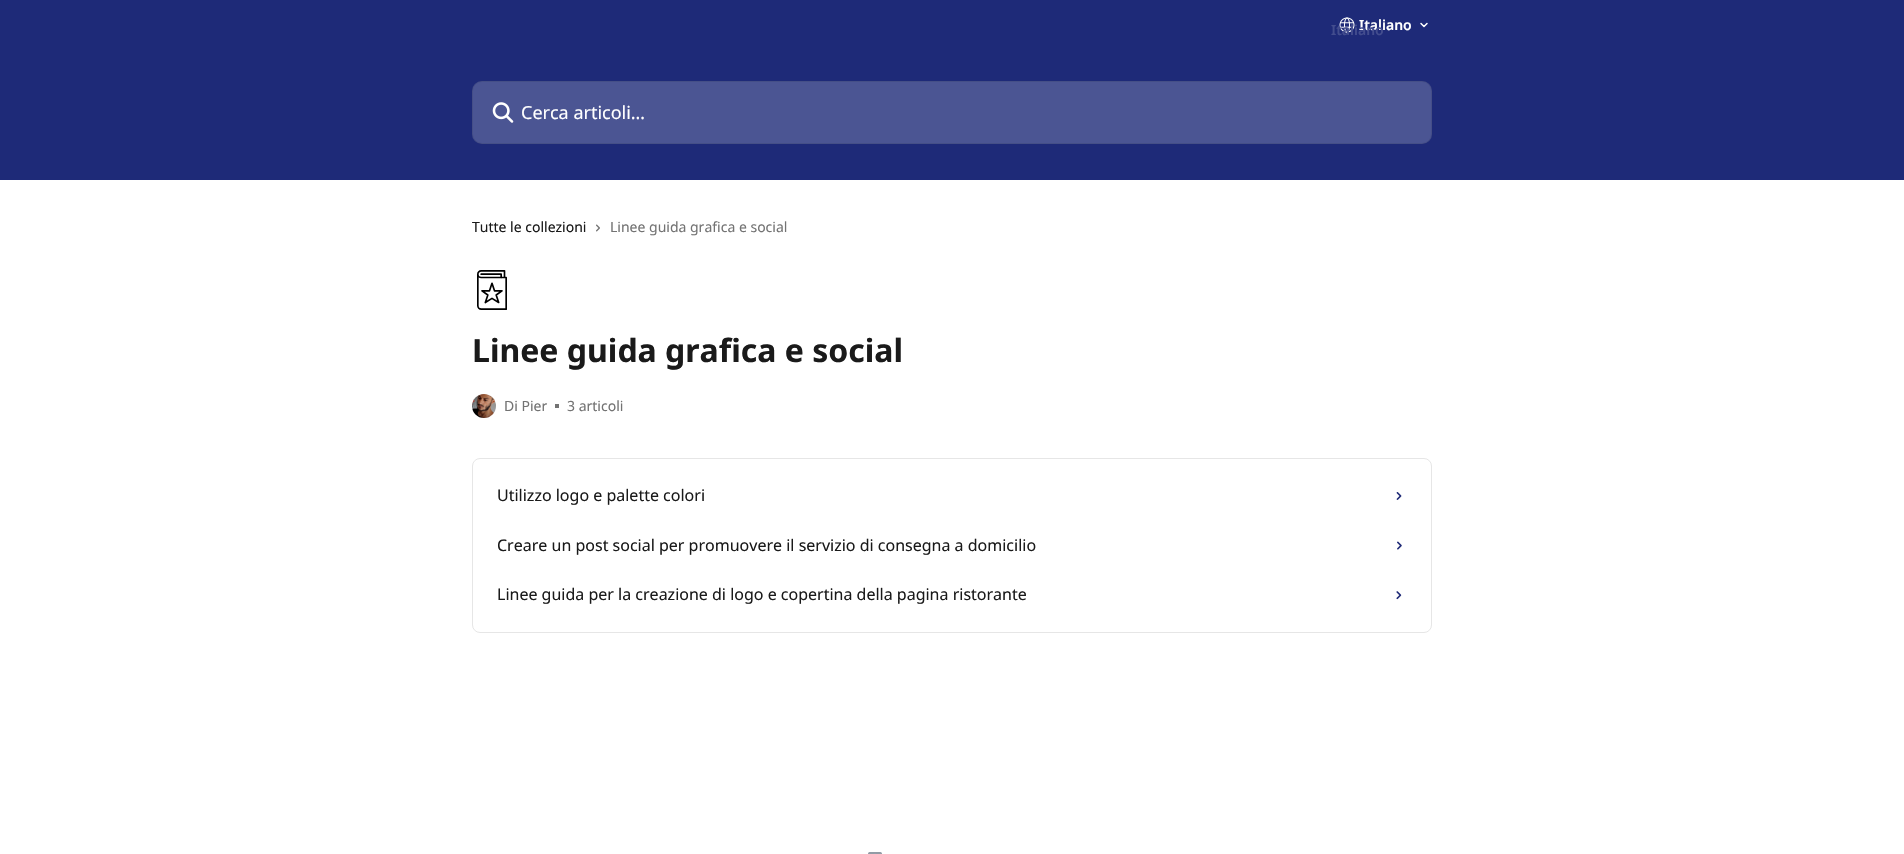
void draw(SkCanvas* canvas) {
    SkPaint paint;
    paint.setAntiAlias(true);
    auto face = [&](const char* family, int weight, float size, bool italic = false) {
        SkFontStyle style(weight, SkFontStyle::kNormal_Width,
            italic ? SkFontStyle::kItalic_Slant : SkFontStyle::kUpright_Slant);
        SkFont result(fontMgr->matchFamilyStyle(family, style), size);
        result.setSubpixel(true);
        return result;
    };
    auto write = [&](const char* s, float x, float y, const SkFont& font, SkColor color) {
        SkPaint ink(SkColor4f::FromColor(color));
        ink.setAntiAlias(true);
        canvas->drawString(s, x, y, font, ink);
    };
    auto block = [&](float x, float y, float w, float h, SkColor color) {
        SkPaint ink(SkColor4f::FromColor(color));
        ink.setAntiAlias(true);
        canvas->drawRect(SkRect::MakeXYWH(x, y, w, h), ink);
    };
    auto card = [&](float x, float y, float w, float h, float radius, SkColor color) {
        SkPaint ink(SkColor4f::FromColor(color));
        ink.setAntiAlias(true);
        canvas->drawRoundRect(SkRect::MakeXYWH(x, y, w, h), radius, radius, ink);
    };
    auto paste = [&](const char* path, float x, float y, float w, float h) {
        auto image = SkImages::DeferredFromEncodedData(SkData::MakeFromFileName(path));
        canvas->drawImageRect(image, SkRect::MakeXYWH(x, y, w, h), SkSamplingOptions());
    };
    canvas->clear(SK_ColorWHITE);
    block(0, 0, 1904, 180, SkColorSetRGB(30, 42, 120));
    paste("pic1.png", 1339, 17, 16, 16);
    auto kFont1 = face("Noto Sans", 600, 14);
    write("Italiano", 1359, 30, kFont1, SK_ColorWHITE);
    write("Italiano", 1331, 35, kFont1, SkColorSetRGB(67, 77, 142));
    paint.setStyle(SkPaint::kStroke_Style);
    paint.setStrokeWidth(1.5f);
    paint.setStrokeCap(SkPaint::kRound_Cap);
    paint.setStrokeJoin(SkPaint::kRound_Join);
    paint.setColor(SK_ColorWHITE);
    canvas->drawPath(SkPathBuilder().moveTo(1421, 23.5f).lineTo(1424, 26.5f).lineTo(1427, 23.5f).detach(), paint);
    card(472, 81, 960, 63, 10, SkColorSetRGB(75, 85, 147));
    paint.setStrokeWidth(1);
    paint.setStrokeCap(SkPaint::kButt_Cap);
    paint.setStrokeJoin(SkPaint::kMiter_Join);
    paint.setColor(SkColorSetARGB(20, 0, 0, 0));
    canvas->drawRoundRect(SkRect::MakeXYWH(472.5f, 81.5f, 959, 62), 9.5f, 9.5f, paint);
    paste("pic2.png", 492, 102, 22, 21);
    auto kFont2 = face("Noto Sans", 400, 18);
    write("Cerca articoli…", 521, 119, kFont2, SK_ColorWHITE);
    auto kFont3 = face("Noto Sans", 400, 14);
    write("Tutte le collezioni", 472, 232, kFont3, SkColorSetRGB(26, 26, 26));
    paste("pic3.png", 596, 224, 4, 8);
    write("Linee guida grafica e social", 610, 232, kFont3, SkColorSetRGB(115, 115, 115));
    paste("pic4.png", 477, 270, 30, 40);
    auto kFont4 = face("Noto Sans", 700, 32);
    write("Linee guida grafica e social", 472, 362, kFont4, SkColorSetRGB(26, 26, 26));
    paste("pic5.png", 472, 394, 24, 24);
    write("Di Pier", 504, 411, kFont3, SkColorSetRGB(115, 115, 115));
    block(555, 404, 4, 4, SkColorSetRGB(115, 115, 115));
    write("3 articoli", 567, 411, kFont3, SkColorSetRGB(115, 115, 115));
    paint.setColor(SkColorSetRGB(230, 230, 230));
    canvas->drawRoundRect(SkRect::MakeXYWH(472.5f, 458.5f, 959, 174), 7.5f, 7.5f, paint);
    auto kFont5 = face("Noto Sans", 400, 16);
    write("Utilizzo logo e palette colori", 497, 501, kFont5, SkColorSetRGB(26, 26, 26));
    paste("pic6.png", 1396, 492, 6, 8);
    write("Creare un post social per promuovere il servizio di consegna a domicilio", 497, 551, kFont5, SkColorSetRGB(26, 26, 26));
    paste("pic7.png", 1397, 541, 5, 9);
    write("Linee guida per la creazione di logo e copertina della pagina ristorante", 497, 600, kFont5, SkColorSetRGB(26, 26, 26));
    paste("pic8.png", 1396, 591, 6, 9);
    paste("pic9.png", 868, 852, 14, 2);
}
